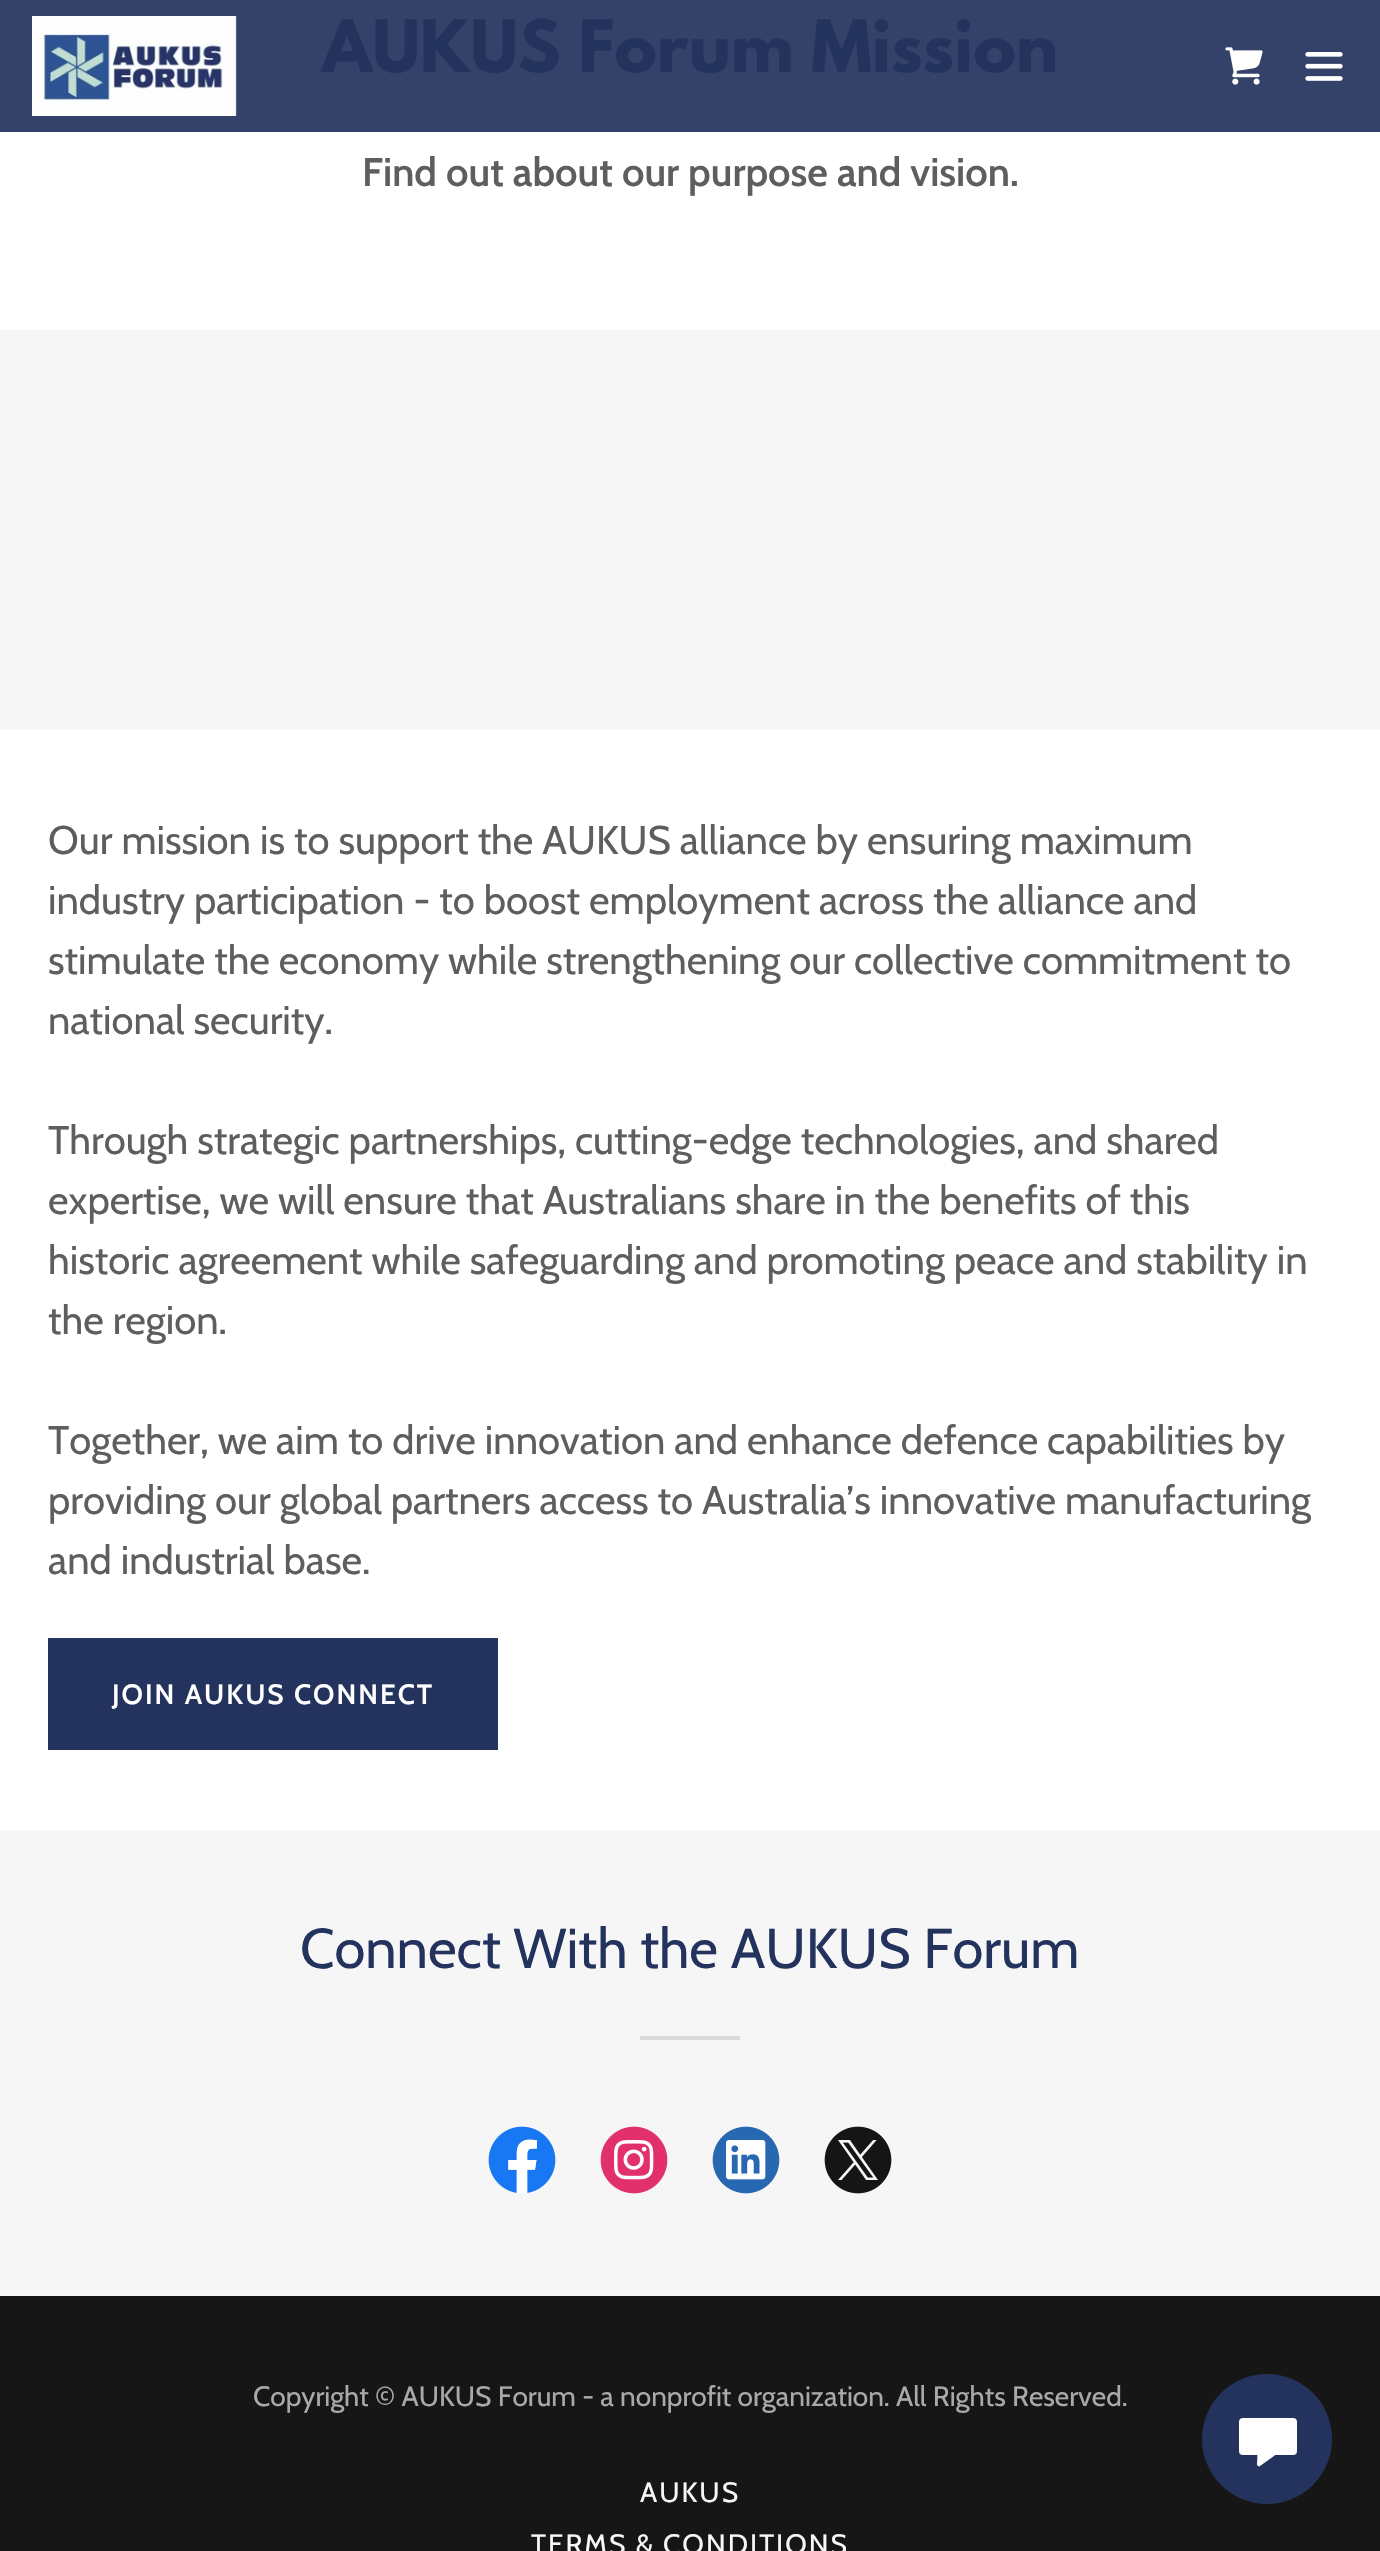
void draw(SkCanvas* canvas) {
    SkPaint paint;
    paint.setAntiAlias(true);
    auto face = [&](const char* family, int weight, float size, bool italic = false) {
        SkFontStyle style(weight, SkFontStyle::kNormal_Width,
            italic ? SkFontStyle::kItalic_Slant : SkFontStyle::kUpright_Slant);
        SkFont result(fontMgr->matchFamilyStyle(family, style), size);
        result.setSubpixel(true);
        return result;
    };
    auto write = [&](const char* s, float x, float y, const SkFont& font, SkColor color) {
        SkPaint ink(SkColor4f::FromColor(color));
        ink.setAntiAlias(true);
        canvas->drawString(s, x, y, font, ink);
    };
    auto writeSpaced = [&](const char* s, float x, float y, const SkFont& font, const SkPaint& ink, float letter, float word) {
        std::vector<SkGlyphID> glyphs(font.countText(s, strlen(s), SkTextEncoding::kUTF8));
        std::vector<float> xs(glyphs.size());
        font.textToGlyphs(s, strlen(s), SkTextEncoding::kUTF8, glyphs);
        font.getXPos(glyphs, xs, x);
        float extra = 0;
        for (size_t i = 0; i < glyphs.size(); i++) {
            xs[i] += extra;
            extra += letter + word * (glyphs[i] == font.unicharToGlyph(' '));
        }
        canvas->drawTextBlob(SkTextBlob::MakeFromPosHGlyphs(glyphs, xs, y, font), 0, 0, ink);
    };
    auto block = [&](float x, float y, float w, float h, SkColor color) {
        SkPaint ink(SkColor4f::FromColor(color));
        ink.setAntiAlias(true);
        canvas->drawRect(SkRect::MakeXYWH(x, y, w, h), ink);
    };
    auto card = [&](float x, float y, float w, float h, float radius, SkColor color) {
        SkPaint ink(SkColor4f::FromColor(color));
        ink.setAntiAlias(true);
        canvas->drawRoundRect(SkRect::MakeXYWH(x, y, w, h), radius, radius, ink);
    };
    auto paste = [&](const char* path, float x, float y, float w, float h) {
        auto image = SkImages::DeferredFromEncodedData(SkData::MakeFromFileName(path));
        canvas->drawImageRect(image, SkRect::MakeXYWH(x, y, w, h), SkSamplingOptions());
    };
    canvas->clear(SkColorSetRGB(22, 22, 22));
    block(0, 0, 1380, 132, SkColorSetRGB(52, 66, 105));
    paste("pic1.png", 32, 16, 205, 100);
    paste("pic2.png", 1225, 47, 38, 38);
    paste("pic3.png", 1305, 52, 38, 29);
    block(0, 132, 1380, 198, SK_ColorWHITE);
    auto kFont1 = face("League Spartan", 700, 64);
    write("AUKUS Forum Mission", 322, 72, kFont1, SkColorSetRGB(35, 51, 93));
    auto kFont2 = face("Cabin", 600, 40);
    write("Find out about our purpose and vision.", 362, 186, kFont2, SkColorSetRGB(94, 94, 94));
    block(0, 330, 1380, 400, SkColorSetRGB(246, 246, 246));
    block(0, 730, 1380, 1100, SK_ColorWHITE);
    auto kFont3 = face("Cabin", 400, 40);
    write("Our mission is to support the AUKUS alliance by ensuring maximum", 48, 854, kFont3, SkColorSetRGB(94, 94, 94));
    write("industry participation - to boost employment across the alliance and", 48, 914, kFont3, SkColorSetRGB(94, 94, 94));
    write("stimulate the economy while strengthening our collective commitment to", 48, 974, kFont3, SkColorSetRGB(94, 94, 94));
    write("national security.", 48, 1034, kFont3, SkColorSetRGB(94, 94, 94));
    write("Through strategic partnerships, cutting-edge technologies, and shared", 48, 1154, kFont3, SkColorSetRGB(94, 94, 94));
    write("expertise, we will ensure that Australians share in the benefits of this", 48, 1214, kFont3, SkColorSetRGB(94, 94, 94));
    write("historic agreement while safeguarding and promoting peace and stability in", 48, 1274, kFont3, SkColorSetRGB(94, 94, 94));
    write("the region.", 48, 1334, kFont3, SkColorSetRGB(94, 94, 94));
    write("Together, we aim to drive innovation and enhance defence capabilities by", 48, 1454, kFont3, SkColorSetRGB(94, 94, 94));
    write("providing our global partners access to Australia’s innovative manufacturing", 48, 1514, kFont3, SkColorSetRGB(94, 94, 94));
    write("and industrial base.", 48, 1574, kFont3, SkColorSetRGB(94, 94, 94));
    block(48, 1638, 450, 112, SkColorSetRGB(35, 51, 93));
    auto kFont4 = face("Cabin", 600, 28);
    paint.setColor(SK_ColorWHITE);
    writeSpaced("JOIN AUKUS CONNECT", 112, 1704, kFont4, paint, 2, 0);
    block(0, 1830, 1380, 466, SkColorSetRGB(246, 246, 246));
    auto kFont5 = face("Cabin", 400, 56);
    write("Connect With the AUKUS Forum", 300, 1968, kFont5, SkColorSetRGB(35, 51, 93));
    block(640, 2036, 100, 4, SkColorSetRGB(218, 218, 218));
    paste("pic4.png", 488, 2126, 68, 67);
    paste("pic5.png", 600, 2126, 68, 68);
    paste("pic6.png", 712, 2126, 68, 68);
    paste("pic7.png", 824, 2126, 68, 68);
    auto kFont6 = face("Cabin", 400, 28);
    write("Copyright © AUKUS Forum - a nonprofit organization. All Rights Reserved.", 253, 2406, kFont6, SkColorSetRGB(169, 169, 169));
    paint.setColor(SkColorSetRGB(247, 247, 247));
    writeSpaced("AUKUS", 640, 2502, kFont6, paint, 2, 0);
    writeSpaced("TERMS & CONDITIONS", 531, 2554, kFont6, paint, 2, 0);
    paint.setColor(SkColorSetRGB(35, 51, 93));
    canvas->drawCircle(1267, 2439, 65, paint);
    card(1239, 2418, 58, 37, 4, SK_ColorWHITE);
    paint.setColor(SK_ColorWHITE);
    canvas->drawPath(SkPathBuilder().moveTo(1257, 2464).lineTo(1257.5f, 2454).cubicTo(1257.5f, 2453, 1258.5f, 2452, 1259.5f, 2452).lineTo(1273, 2452).cubicTo(1275, 2452, 1276, 2455, 1274, 2456).lineTo(1260, 2466).cubicTo(1259.5f, 2466.5f, 1258.5f, 2466.5f, 1258, 2466).cubicTo(1257.5f, 2465.5f, 1257, 2465, 1257, 2464).close().detach(), paint);
}
